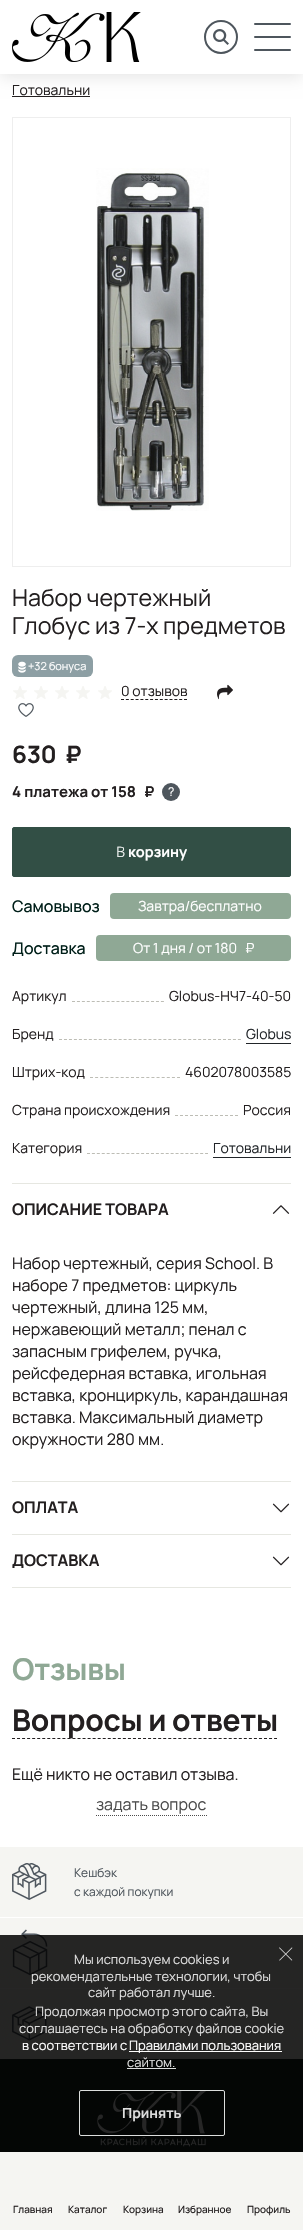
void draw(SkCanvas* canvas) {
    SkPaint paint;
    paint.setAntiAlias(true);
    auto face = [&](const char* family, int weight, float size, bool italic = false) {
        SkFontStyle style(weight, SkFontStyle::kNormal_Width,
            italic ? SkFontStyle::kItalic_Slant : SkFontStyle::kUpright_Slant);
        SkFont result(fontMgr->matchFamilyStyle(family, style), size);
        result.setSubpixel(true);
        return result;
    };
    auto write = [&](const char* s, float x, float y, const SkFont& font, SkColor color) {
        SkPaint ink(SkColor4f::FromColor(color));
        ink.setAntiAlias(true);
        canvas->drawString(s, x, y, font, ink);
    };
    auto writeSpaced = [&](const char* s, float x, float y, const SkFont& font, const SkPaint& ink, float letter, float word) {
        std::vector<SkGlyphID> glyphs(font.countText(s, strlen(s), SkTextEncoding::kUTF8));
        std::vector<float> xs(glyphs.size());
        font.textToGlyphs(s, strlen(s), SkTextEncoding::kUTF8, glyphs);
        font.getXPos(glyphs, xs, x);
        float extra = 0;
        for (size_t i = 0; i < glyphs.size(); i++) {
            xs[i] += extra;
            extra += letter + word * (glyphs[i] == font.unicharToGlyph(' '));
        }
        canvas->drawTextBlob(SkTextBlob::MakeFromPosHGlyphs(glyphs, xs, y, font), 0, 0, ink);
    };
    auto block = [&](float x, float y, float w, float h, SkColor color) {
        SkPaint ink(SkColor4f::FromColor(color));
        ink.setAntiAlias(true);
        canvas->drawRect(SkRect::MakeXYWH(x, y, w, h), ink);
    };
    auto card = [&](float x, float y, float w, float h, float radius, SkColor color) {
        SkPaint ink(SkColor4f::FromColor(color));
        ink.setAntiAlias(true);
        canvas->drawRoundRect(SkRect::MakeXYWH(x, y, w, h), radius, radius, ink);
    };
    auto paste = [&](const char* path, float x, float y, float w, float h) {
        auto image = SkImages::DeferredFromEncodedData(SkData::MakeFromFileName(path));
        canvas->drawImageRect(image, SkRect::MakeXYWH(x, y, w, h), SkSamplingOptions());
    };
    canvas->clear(SK_ColorWHITE);
    block(12, 96, 78, 1, SkColorSetRGB(35, 31, 32));
    paint.setColor(SkColorSetARGB(26, 0, 0, 0));
    paint.setMaskFilter(SkMaskFilter::MakeBlur(kNormal_SkBlurStyle, 7.5f));
    canvas->drawRect(SkRect::MakeXYWH(0, 3, 303, 74), paint);
    paint.setMaskFilter(nullptr);
    block(0, 0, 303, 74, SK_ColorWHITE);
    paste("pic1.png", 12, 12, 129, 50);
    paste("pic2.png", 213, 29, 16, 16);
    paint.setStyle(SkPaint::kStroke_Style);
    paint.setStrokeWidth(2);
    paint.setColor(SkColorSetRGB(78, 86, 93));
    canvas->drawCircle(221, 37, 16, paint);
    card(254, 36, 37, 2, 1, SkColorSetRGB(78, 86, 93));
    card(254, 23, 37, 2, 1, SkColorSetRGB(78, 86, 93));
    card(254, 49, 37, 2, 1, SkColorSetRGB(78, 86, 93));
    auto kFont1 = face("Manrope", 400, 14);
    write("Готовальни", 12, 95, kFont1, SkColorSetRGB(35, 31, 32));
    paint.setStrokeWidth(1);
    paint.setColor(SkColorSetRGB(238, 238, 238));
    canvas->drawRect(SkRect::MakeXYWH(12.5f, 117.5f, 278, 449), paint);
    paste("pic3.png", 96, 168, 113, 343);
    auto kFont2 = face("Manrope", 400, 23.3f);
    write("Набор чертежный", 12, 606, kFont2, SkColorSetRGB(35, 31, 32));
    write("Глобус из 7-х предметов", 12, 634, kFont2, SkColorSetRGB(35, 31, 32));
    card(12, 655, 81, 22, 6, SkColorSetRGB(141, 159, 164));
    paste("pic4.png", 18, 661, 8, 12);
    auto kFont3 = face("Manrope", 400, 11);
    write("+32 бонуса", 28, 670, kFont3, SK_ColorWHITE);
    paste("pic5.png", 13, 686, 14, 13);
    paste("pic5.png", 34, 686, 14, 13);
    paste("pic5.png", 55, 686, 14, 13);
    paste("pic5.png", 76, 686, 14, 13);
    paste("pic5.png", 98, 686, 14, 13);
    paint.setColor(SkColorSetRGB(35, 31, 32));
    paint.setPathEffect(SkDashPathEffect::Make({{3, 1.85f}}, 0));
    canvas->drawPath(SkPathBuilder().moveTo(121, 699.5f).lineTo(187, 699.5f).detach(), paint);
    paint.setPathEffect(nullptr);
    write("0 отзывов", 121, 696, kFont1, SkColorSetRGB(35, 31, 32));
    paste("pic6.png", 217, 684, 16, 16);
    paste("pic7.png", 18, 703, 16, 14);
    auto kFont4 = face("Manrope", 700, 24);
    write("630", 12, 763, kFont4, SkColorSetRGB(35, 31, 32));
    write("₽", 65, 763, kFont4, SkColorSetRGB(35, 31, 32));
    auto kFont5 = face("Manrope", 700, 15);
    write("4 платежа от 158", 12, 797, kFont5, SkColorSetRGB(35, 31, 32));
    write("₽", 144, 797, kFont5, SkColorSetRGB(35, 31, 32));
    paint.setStyle(SkPaint::kFill_Style);
    paint.setColor(SkColorSetRGB(78, 86, 93));
    canvas->drawCircle(171, 792, 9, paint);
    auto kFont6 = face("Manrope", 400, 12);
    write("?", 168, 796, kFont6, SK_ColorWHITE);
    paint.setColor(SkColorSetRGB(50, 79, 69));
    canvas->drawRoundRect(SkRect::MakeXYWH(12.5f, 827.5f, 278, 49), 1.5f, 1.5f, paint);
    paint.setStyle(SkPaint::kStroke_Style);
    canvas->drawRoundRect(SkRect::MakeXYWH(12.5f, 827.5f, 278, 49), 1.5f, 1.5f, paint);
    auto kFont7 = face("Noto Sans", 300, 14.5f);
    write("В", 116, 857, kFont7, SK_ColorWHITE);
    auto kFont8 = face("Manrope", 700, 14.5f);
    write("корзину", 128, 857, kFont8, SK_ColorWHITE);
    auto kFont9 = face("Manrope", 500, 16);
    write("Самовывоз", 12, 912, kFont9, SkColorSetRGB(0, 31, 25));
    card(110, 893, 181, 26, 4, SkColorSetRGB(143, 168, 149));
    write("Завтра/бесплатно", 138, 911, kFont1, SK_ColorWHITE);
    write("Доставка", 12, 954, kFont9, SkColorSetRGB(0, 31, 25));
    card(96, 935, 195, 26, 4, SkColorSetRGB(143, 168, 149));
    write("От 1 дня / от 180", 133, 953, kFont1, SK_ColorWHITE);
    write("₽", 245, 953, kFont1, SK_ColorWHITE);
    write("Артикул", 12, 1001, kFont1, SkColorSetRGB(35, 31, 32));
    paint.setColor(SkColorSetRGB(189, 189, 181));
    paint.setPathEffect(SkDashPathEffect::Make({{3, 1.94f}}, 0));
    canvas->drawPath(SkPathBuilder().moveTo(72, 1001.5f).lineTo(164, 1001.5f).detach(), paint);
    paint.setPathEffect(nullptr);
    write("Globus-НЧ7-40-50", 169, 1001, kFont1, SkColorSetRGB(35, 31, 32));
    write("Бренд", 12, 1039, kFont1, SkColorSetRGB(35, 31, 32));
    paint.setPathEffect(SkDashPathEffect::Make({{3, 1.97f}}, 0));
    canvas->drawPath(SkPathBuilder().moveTo(59, 1039.5f).lineTo(241, 1039.5f).detach(), paint);
    paint.setPathEffect(nullptr);
    write("Globus", 246, 1039, kFont1, SkColorSetRGB(33, 37, 41));
    block(246, 1043, 45, 1, SkColorSetRGB(33, 37, 41));
    write("Штрих-код", 12, 1077, kFont1, SkColorSetRGB(35, 31, 32));
    paint.setPathEffect(SkDashPathEffect::Make({{3, 2.12f}}, 0));
    canvas->drawPath(SkPathBuilder().moveTo(90, 1077.5f).lineTo(180, 1077.5f).detach(), paint);
    paint.setPathEffect(nullptr);
    write("4602078003585", 185, 1077, kFont1, SkColorSetRGB(35, 31, 32));
    write("Страна происхождения", 12, 1115, kFont1, SkColorSetRGB(35, 31, 32));
    paint.setPathEffect(SkDashPathEffect::Make({{3, 2}}, 0));
    canvas->drawPath(SkPathBuilder().moveTo(175, 1115.5f).lineTo(238, 1115.5f).detach(), paint);
    paint.setPathEffect(nullptr);
    write("Россия", 243, 1115, kFont1, SkColorSetRGB(35, 31, 32));
    write("Категория", 12, 1153, kFont1, SkColorSetRGB(35, 31, 32));
    paint.setPathEffect(SkDashPathEffect::Make({{3, 1.92f}}, 0));
    canvas->drawPath(SkPathBuilder().moveTo(87, 1153.5f).lineTo(208, 1153.5f).detach(), paint);
    paint.setPathEffect(nullptr);
    write("Готовальни", 213, 1153, kFont1, SkColorSetRGB(33, 37, 41));
    block(213, 1157, 78, 1, SkColorSetRGB(33, 37, 41));
    block(12, 1183, 279, 1, SkColorSetRGB(230, 231, 225));
    block(12, 1481, 279, 1, SkColorSetRGB(230, 231, 225));
    auto kFont10 = face("Manrope", 700, 16);
    write("ОПИСАНИЕ ТОВАРА", 12, 1215, kFont10, SkColorSetRGB(35, 31, 32));
    paste("pic8.png", 272, 1205, 18, 9);
    auto kFont11 = face("Manrope", 400, 16);
    write("Набор чертежный, серия School. В", 12, 1269, kFont11, SkColorSetRGB(35, 31, 32));
    write("наборе 7 предметов: циркуль", 12, 1291, kFont11, SkColorSetRGB(35, 31, 32));
    write("чертежный, длина 125 мм,", 12, 1313, kFont11, SkColorSetRGB(35, 31, 32));
    write("нержавеющий металл; пенал с", 12, 1335, kFont11, SkColorSetRGB(35, 31, 32));
    write("запасным грифелем, ручка,", 12, 1357, kFont11, SkColorSetRGB(35, 31, 32));
    write("рейсфедерная вставка, игольная", 12, 1379, kFont11, SkColorSetRGB(35, 31, 32));
    write("вставка, кронциркуль, карандашная", 12, 1401, kFont11, SkColorSetRGB(35, 31, 32));
    write("вставка. Максимальный диаметр", 12, 1423, kFont11, SkColorSetRGB(35, 31, 32));
    write("окружности 280 мм.", 12, 1445, kFont11, SkColorSetRGB(35, 31, 32));
    block(12, 1534, 279, 1, SkColorSetRGB(230, 231, 225));
    write("ОПЛАТА", 12, 1513, kFont10, SkColorSetRGB(35, 31, 32));
    paste("pic9.png", 272, 1503, 18, 10);
    block(12, 1587, 279, 1, SkColorSetRGB(230, 231, 225));
    write("ДОСТАВКА", 12, 1566, kFont10, SkColorSetRGB(35, 31, 32));
    paste("pic9.png", 272, 1556, 18, 10);
    auto kFont12 = face("Manrope", 700, 30);
    paint.setStyle(SkPaint::kFill_Style);
    paint.setColor(SkColorSetRGB(143, 168, 149));
    writeSpaced("Отзывы", 12, 1680, kFont12, paint, -0.25f, 0);
    paint.setStyle(SkPaint::kStroke_Style);
    paint.setColor(SkColorSetRGB(35, 31, 32));
    paint.setPathEffect(SkDashPathEffect::Make({{3, 2.04f}}, 0));
    canvas->drawPath(SkPathBuilder().moveTo(12, 1738.5f).lineTo(277, 1738.5f).detach(), paint);
    paint.setPathEffect(nullptr);
    paint.setStyle(SkPaint::kFill_Style);
    writeSpaced("Вопросы и ответы", 12, 1731, kFont12, paint, -0.25f, 0);
    write("Ещё никто не оставил отзыва.", 12, 1780, kFont11, SkColorSetRGB(35, 31, 32));
    paint.setStyle(SkPaint::kStroke_Style);
    paint.setColor(SkColorSetRGB(76, 76, 76));
    paint.setPathEffect(SkDashPathEffect::Make({{1, 1}}, 0));
    canvas->drawPath(SkPathBuilder().moveTo(96, 1815.5f).lineTo(207, 1815.5f).detach(), paint);
    paint.setPathEffect(nullptr);
    write("задать вопрос", 96, 1810, kFont11, SkColorSetRGB(76, 76, 76));
    block(0, 1847, 303, 212, SkColorSetRGB(245, 245, 242));
    paste("pic10.png", 12, 1863, 35, 37);
    write("Кешбэк", 74, 1877, kFont6, SkColorSetRGB(78, 86, 93));
    write("с каждой покупки", 74, 1896, kFont6, SkColorSetRGB(78, 86, 93));
    block(0, 1917, 303, 1, SK_ColorWHITE);
    paste("pic11.png", 12, 1929, 36, 47);
    block(0, 1988, 303, 1, SK_ColorWHITE);
    paste("pic12.png", 12, 2006, 35, 35);
    block(0, 2059, 303, 93, SkColorSetRGB(21, 36, 31));
    paste("pic13.png", 97, 2091, 109, 56);
    block(0, 1935, 303, 217, SkColorSetARGB(217, 0, 0, 0));
    auto kFont13 = face("Manrope", 400, 13);
    write("Мы используем cookies и", 74, 1964, kFont13, SkColorSetRGB(222, 222, 222));
    write("рекомендательные технологии, чтобы", 31, 1981, kFont13, SkColorSetRGB(222, 222, 222));
    write("сайт работал лучше.", 88, 1997, kFont13, SkColorSetRGB(222, 222, 222));
    write("Продолжая просмотр этого сайта, Вы", 35, 2016, kFont13, SkColorSetRGB(222, 222, 222));
    write("соглашаетесь на обработку файлов cookie", 19, 2033, kFont13, SkColorSetRGB(222, 222, 222));
    write("в соответствии с", 22, 2050, kFont13, SK_ColorWHITE);
    block(129, 2051, 153, 1, SkColorSetRGB(254, 254, 253));
    write("Правилами пользования", 129, 2050, kFont13, SK_ColorWHITE);
    write("сайтом.", 127, 2067, kFont13, SkColorSetRGB(222, 222, 222));
    block(127, 2068, 49, 1, SkColorSetRGB(220, 222, 221));
    paint.setColor(SkColorSetRGB(220, 222, 221));
    canvas->drawRoundRect(SkRect::MakeXYWH(79.5f, 2090.5f, 145, 45), 1.5f, 1.5f, paint);
    auto kFont14 = face("Manrope", 700, 14);
    write("Принять", 122, 2118, kFont14, SkColorSetRGB(222, 222, 222));
    paste("pic14.png", 279, 1947, 14, 14);
    block(0, 2152, 303, 78, SkColorSetRGB(245, 245, 242));
    auto kFont15 = face("Manrope", 500, 10);
    write("Главная", 13, 2213, kFont15, SkColorSetRGB(35, 31, 32));
    write("Каталог", 68, 2213, kFont15, SkColorSetRGB(35, 31, 32));
    write("Корзина", 123, 2213, kFont15, SkColorSetRGB(35, 31, 32));
    write("Избранное", 178, 2213, kFont15, SkColorSetRGB(35, 31, 32));
    write("Профиль", 247, 2213, kFont15, SkColorSetRGB(35, 31, 32));
}
